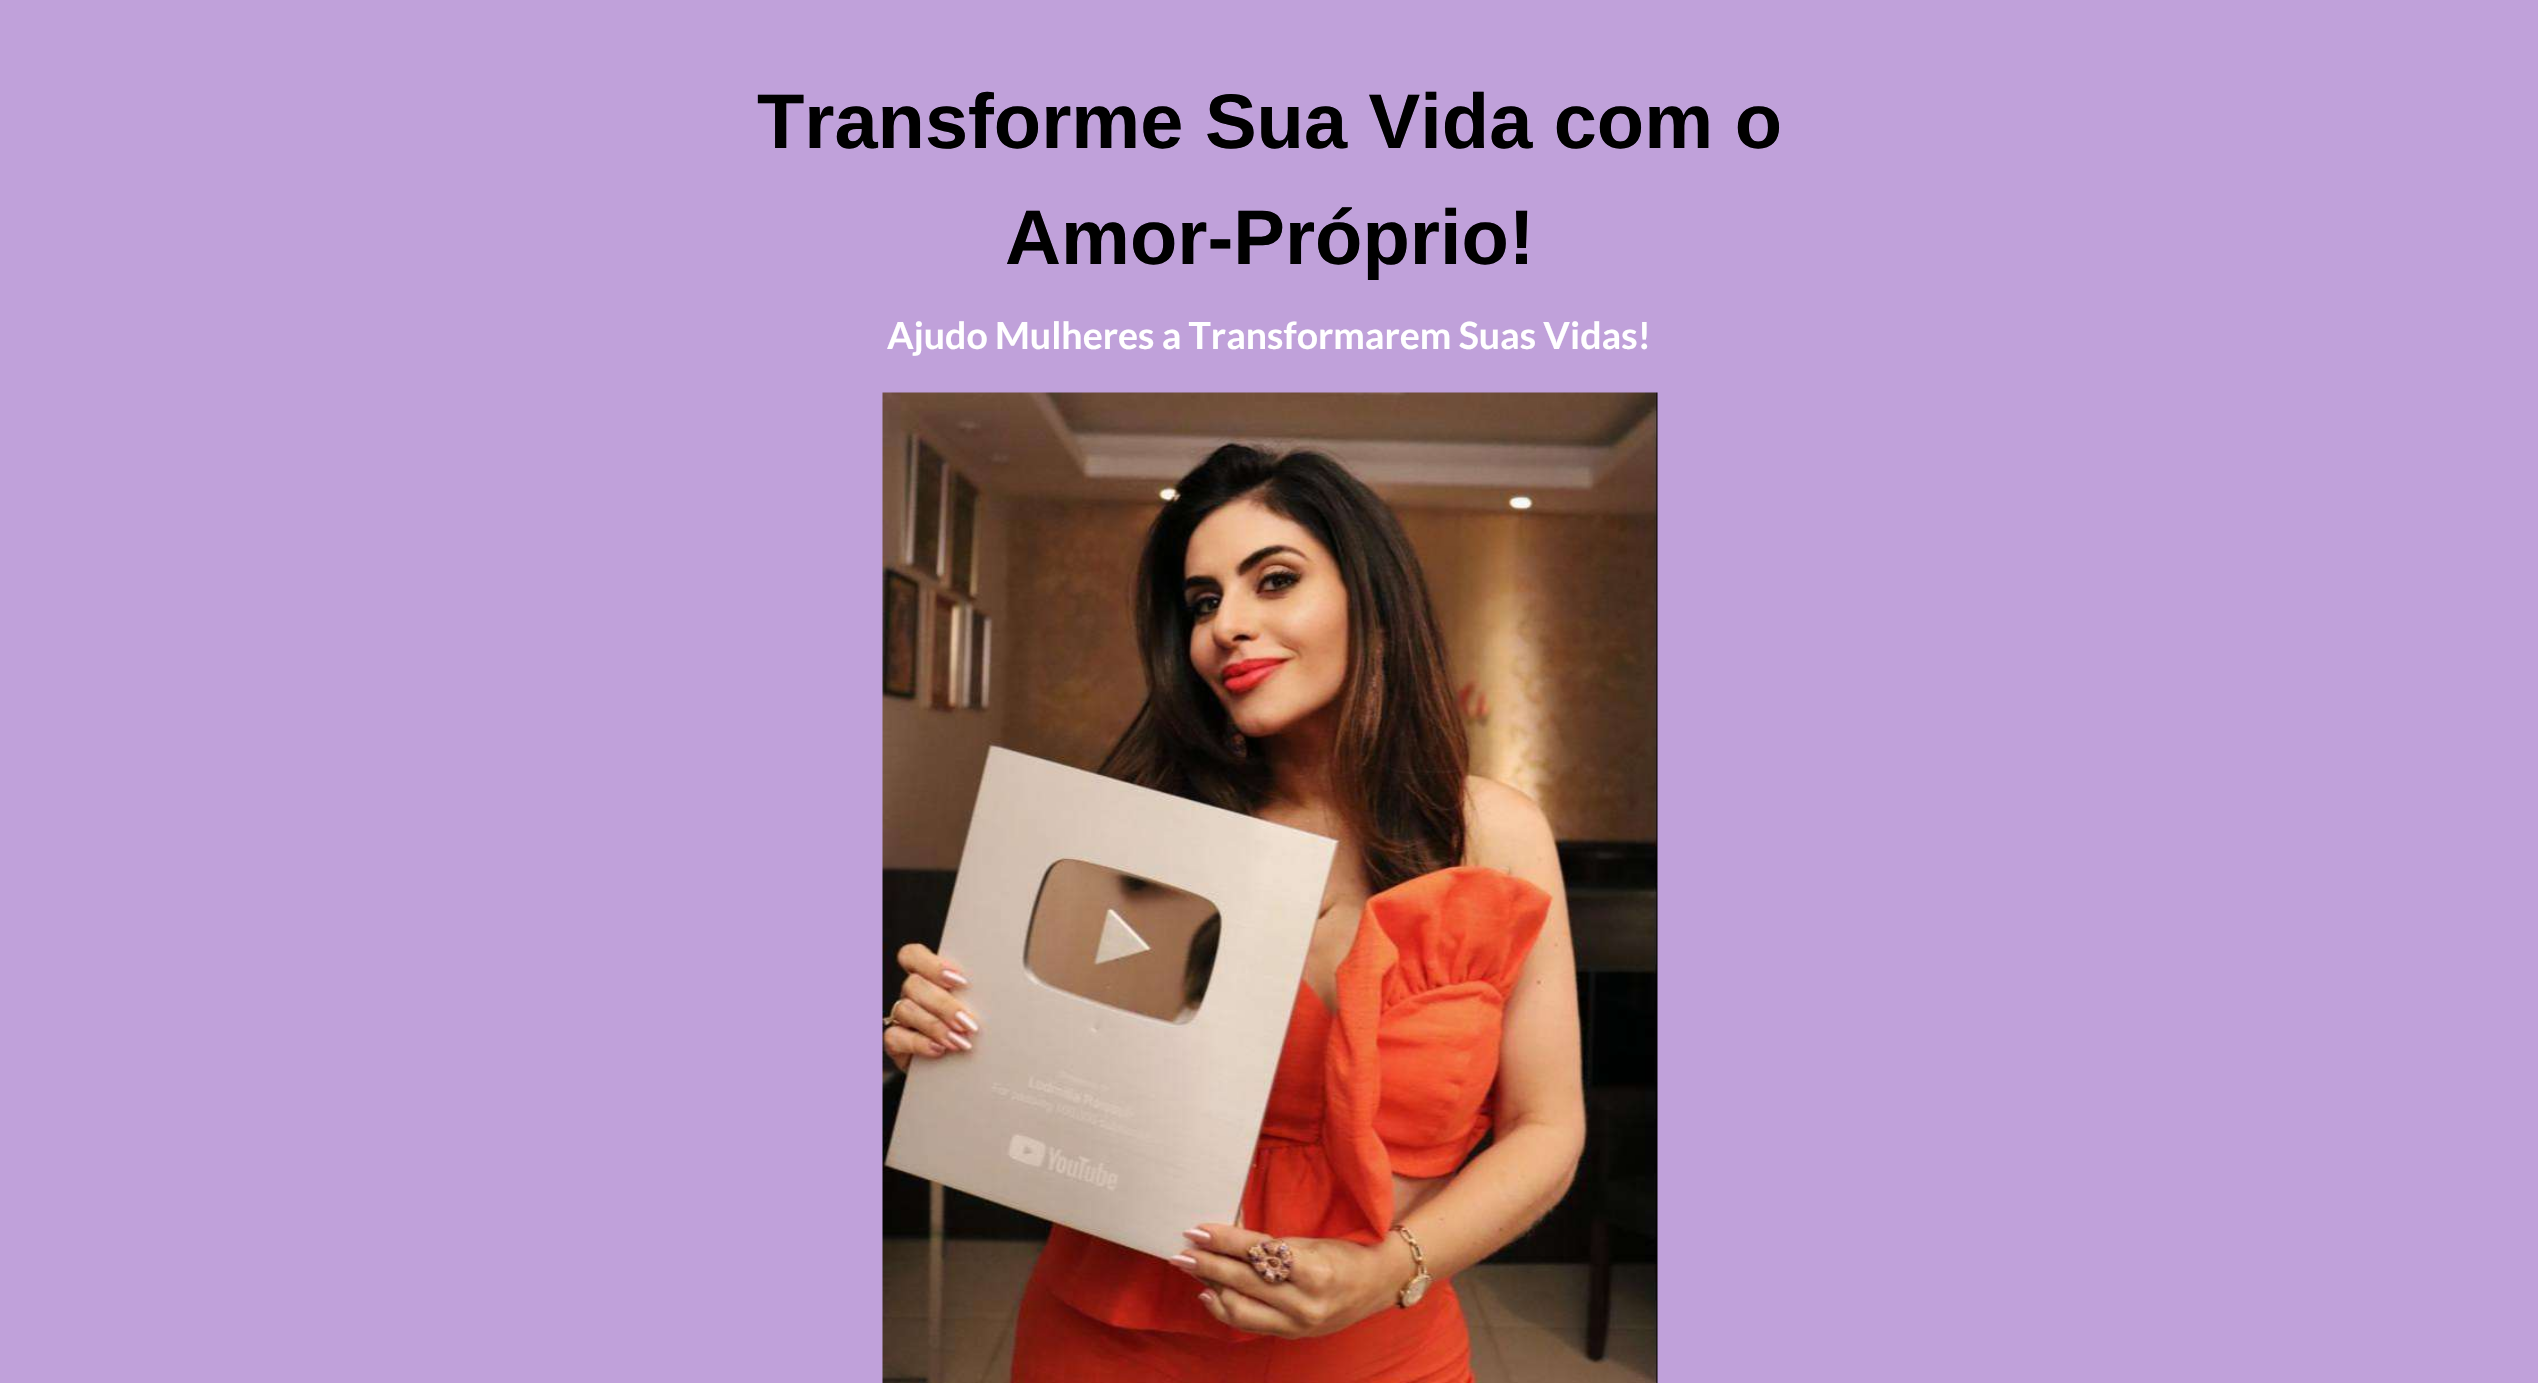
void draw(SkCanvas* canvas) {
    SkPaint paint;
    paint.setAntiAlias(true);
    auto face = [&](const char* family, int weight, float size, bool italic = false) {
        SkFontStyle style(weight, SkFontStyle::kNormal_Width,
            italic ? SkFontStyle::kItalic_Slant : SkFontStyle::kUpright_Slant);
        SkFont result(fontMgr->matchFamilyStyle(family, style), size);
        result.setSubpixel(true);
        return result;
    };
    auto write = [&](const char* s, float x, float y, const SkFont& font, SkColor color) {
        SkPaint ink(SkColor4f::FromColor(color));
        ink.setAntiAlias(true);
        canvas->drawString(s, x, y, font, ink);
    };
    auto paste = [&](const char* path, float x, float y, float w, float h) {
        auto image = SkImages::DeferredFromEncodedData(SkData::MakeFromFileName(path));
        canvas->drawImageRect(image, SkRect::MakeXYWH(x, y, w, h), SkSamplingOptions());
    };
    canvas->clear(SkColorSetRGB(192, 161, 218));
    auto kFont1 = face("Liberation Sans", 700, 77.5f);
    write("Transforme Sua Vida com o", 757, 148, kFont1, SK_ColorBLACK);
    write("Amor-Próprio!", 1005, 264, kFont1, SK_ColorBLACK);
    auto kFont2 = face("Lato", 700, 37.5f);
    write("Ajudo Mulheres a Transformarem Suas Vidas!", 887, 349, kFont2, SK_ColorWHITE);
    paste("pic1.png", 882, 392, 776, 991);
}
